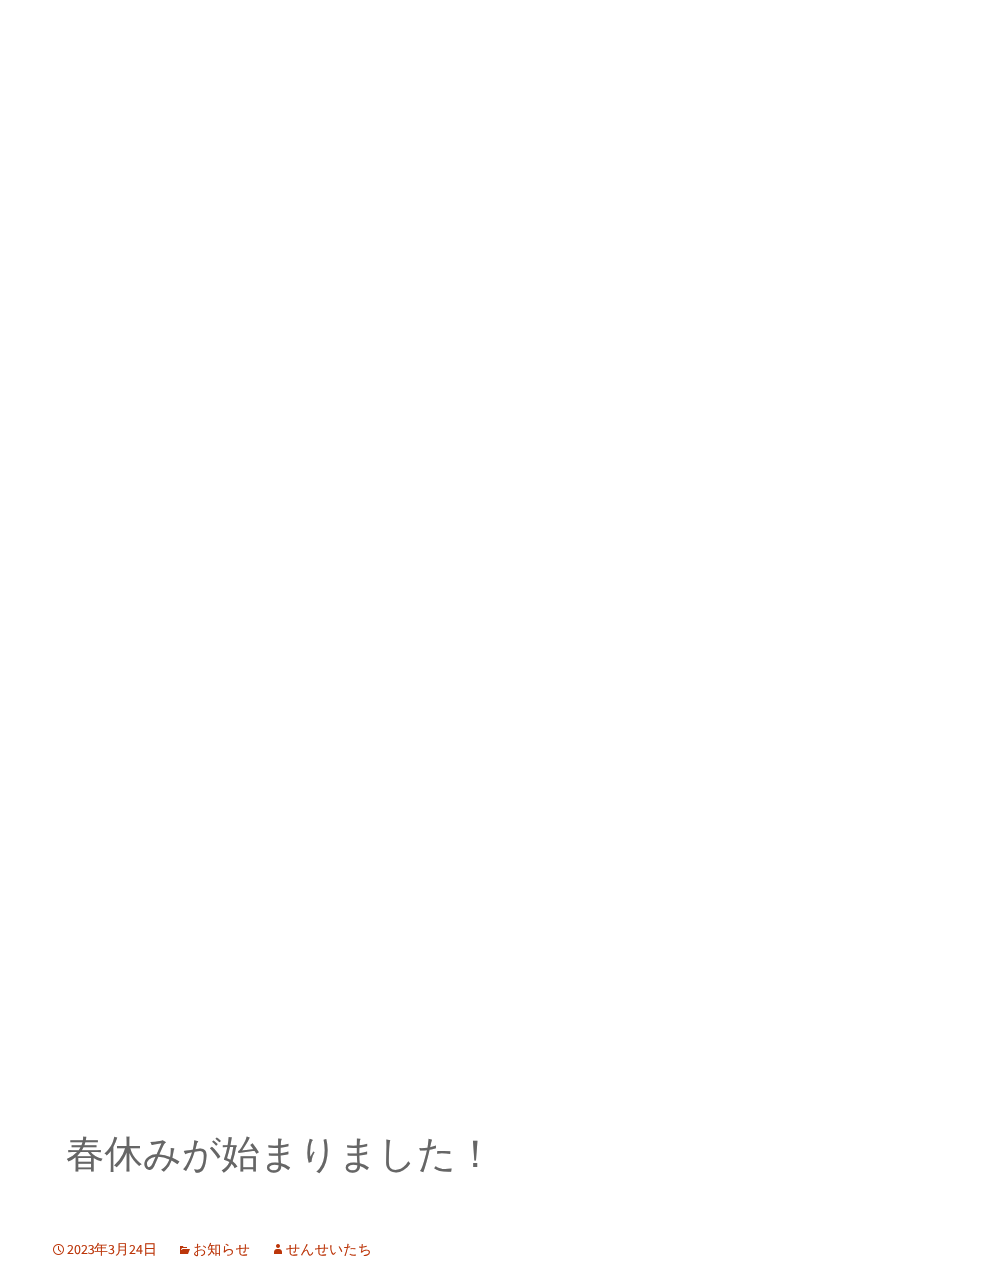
void draw(SkCanvas* canvas) {
    SkPaint paint;
    paint.setAntiAlias(true);
    auto face = [&](const char* family, int weight, float size, bool italic = false) {
        SkFontStyle style(weight, SkFontStyle::kNormal_Width,
            italic ? SkFontStyle::kItalic_Slant : SkFontStyle::kUpright_Slant);
        SkFont result(fontMgr->matchFamilyStyle(family, style), size);
        result.setSubpixel(true);
        return result;
    };
    auto write = [&](const char* s, float x, float y, const SkFont& font, SkColor color) {
        SkPaint ink(SkColor4f::FromColor(color));
        ink.setAntiAlias(true);
        canvas->drawString(s, x, y, font, ink);
    };
    auto paste = [&](const char* path, float x, float y, float w, float h) {
        auto image = SkImages::DeferredFromEncodedData(SkData::MakeFromFileName(path));
        canvas->drawImageRect(image, SkRect::MakeXYWH(x, y, w, h), SkSamplingOptions());
    };
    canvas->clear(SK_ColorWHITE);
    auto kFont1 = face("WenQuanYi Zen Hei", 500, 38.4f);
    write("春休みが始まりました！", 66, 1167, kFont1, SkColorSetRGB(102, 102, 102));
    paste("pic1.png", 53, 1244, 11, 11);
    auto kFont2 = face("Source Sans Pro", 400, 14);
    write("2023", 67, 1254, kFont2, SkColorSetRGB(188, 54, 10));
    auto kFont3 = face("WenQuanYi Zen Hei", 500, 14);
    write("年", 94, 1254, kFont3, SkColorSetRGB(188, 54, 10));
    write("3", 108, 1254, kFont2, SkColorSetRGB(188, 54, 10));
    write("月", 115, 1254, kFont3, SkColorSetRGB(188, 54, 10));
    write("24", 129, 1254, kFont2, SkColorSetRGB(188, 54, 10));
    write("日", 143, 1254, kFont3, SkColorSetRGB(188, 54, 10));
    paste("pic2.png", 180, 1246, 10, 8);
    write("お知らせ", 193, 1254, kFont3, SkColorSetRGB(188, 54, 10));
    paste("pic3.png", 274, 1244, 8, 10);
    write("せんせいたち", 286, 1254, kFont3, SkColorSetRGB(188, 54, 10));
}
